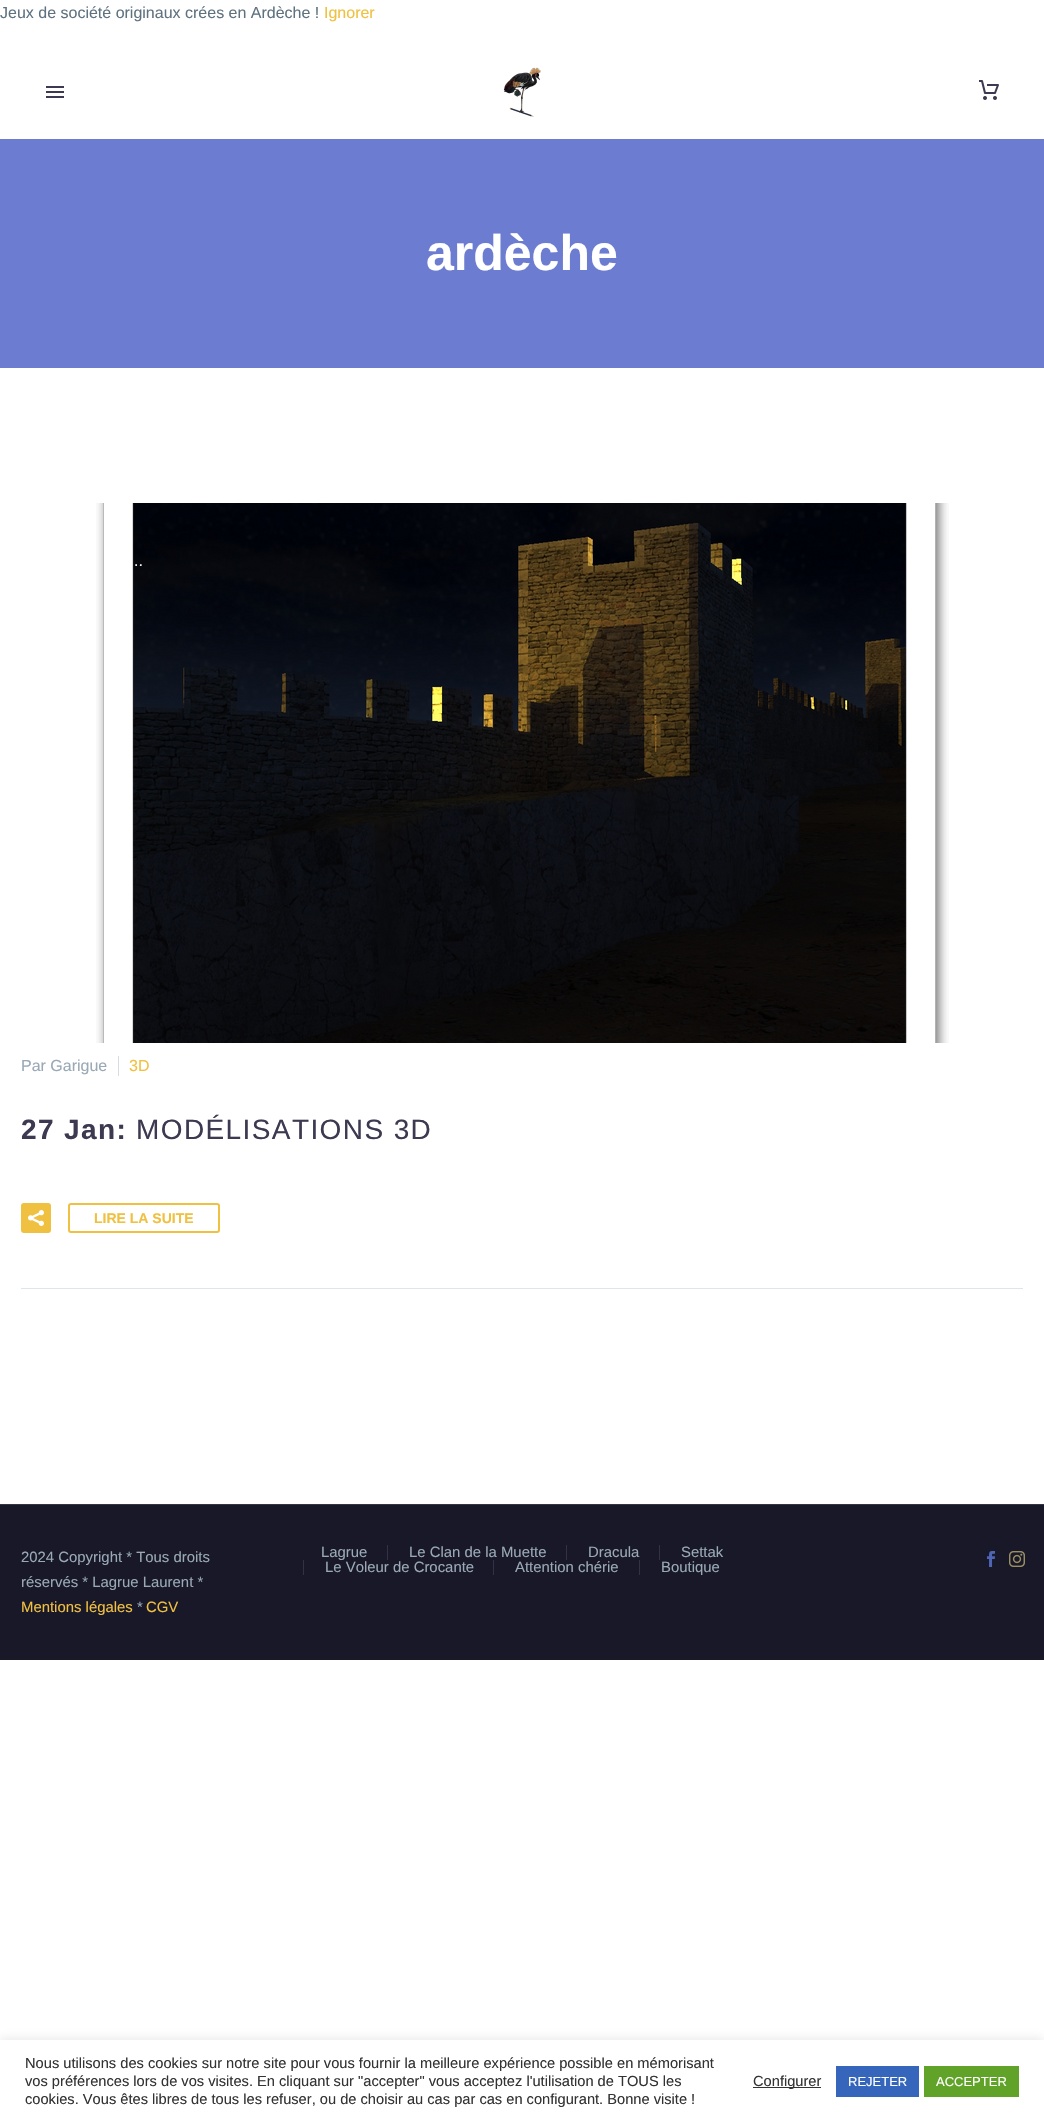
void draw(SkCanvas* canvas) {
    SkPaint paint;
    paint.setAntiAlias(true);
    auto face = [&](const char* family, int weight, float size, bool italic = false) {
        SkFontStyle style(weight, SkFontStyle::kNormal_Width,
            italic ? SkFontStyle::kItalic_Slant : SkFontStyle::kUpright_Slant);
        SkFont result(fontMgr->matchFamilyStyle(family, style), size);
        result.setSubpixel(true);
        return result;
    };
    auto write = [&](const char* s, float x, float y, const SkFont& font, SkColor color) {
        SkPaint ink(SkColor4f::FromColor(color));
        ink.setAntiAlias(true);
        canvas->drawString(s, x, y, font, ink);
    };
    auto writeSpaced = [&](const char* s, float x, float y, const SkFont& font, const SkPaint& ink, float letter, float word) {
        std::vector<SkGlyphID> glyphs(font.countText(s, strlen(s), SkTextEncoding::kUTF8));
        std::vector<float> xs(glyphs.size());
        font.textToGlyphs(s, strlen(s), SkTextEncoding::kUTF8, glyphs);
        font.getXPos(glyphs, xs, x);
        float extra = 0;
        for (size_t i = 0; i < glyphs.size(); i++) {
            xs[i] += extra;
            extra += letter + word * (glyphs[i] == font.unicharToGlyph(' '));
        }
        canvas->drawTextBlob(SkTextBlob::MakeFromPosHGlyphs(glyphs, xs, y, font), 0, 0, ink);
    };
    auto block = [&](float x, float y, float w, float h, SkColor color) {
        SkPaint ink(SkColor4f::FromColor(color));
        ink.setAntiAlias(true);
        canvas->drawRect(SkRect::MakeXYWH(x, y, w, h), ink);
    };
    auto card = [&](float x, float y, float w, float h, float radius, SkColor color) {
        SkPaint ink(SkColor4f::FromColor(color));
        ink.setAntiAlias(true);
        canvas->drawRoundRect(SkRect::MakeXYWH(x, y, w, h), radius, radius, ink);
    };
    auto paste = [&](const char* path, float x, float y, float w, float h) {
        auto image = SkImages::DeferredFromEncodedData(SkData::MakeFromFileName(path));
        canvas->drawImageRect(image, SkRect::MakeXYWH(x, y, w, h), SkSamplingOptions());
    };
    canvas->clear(SK_ColorWHITE);
    auto kFont1 = face("Liberation Sans", 400, 16);
    write("Jeux de société originaux crées en Ardèche !", 0, 18, kFont1, SkColorSetRGB(95, 114, 127));
    write("Ignorer", 324, 18, kFont1, SkColorSetRGB(240, 192, 64));
    block(0, 139, 1044, 229, SkColorSetRGB(108, 124, 208));
    auto kFont2 = face("Liberation Sans", 700, 50);
    write("ardèche", 426, 270, kFont2, SK_ColorWHITE);
    block(21, 1288, 1002, 1, SkColorSetRGB(223, 229, 232));
    paste("pic1.png", 96, 503, 853, 540);
    write("Par Garigue", 21, 1071, kFont1, SkColorSetRGB(153, 169, 181));
    block(118, 1056, 1, 20, SkColorSetRGB(212, 222, 225));
    write("3D", 129, 1071, kFont1, SkColorSetRGB(240, 192, 64));
    auto kFont3 = face("Liberation Sans", 700, 28);
    paint.setColor(SkColorSetRGB(60, 57, 80));
    writeSpaced("27 Jan:", 21, 1139, kFont3, paint, 1.4f, 0);
    auto kFont4 = face("Liberation Sans", 400, 28);
    writeSpaced("MODÉLISATIONS 3D", 136, 1139, kFont4, paint, 1.4f, 0);
    card(21, 1203, 30, 30, 3, SkColorSetRGB(240, 192, 64));
    paste("pic2.png", 28, 1210, 16, 16);
    paint.setStyle(SkPaint::kStroke_Style);
    paint.setStrokeWidth(2);
    paint.setColor(SkColorSetRGB(240, 192, 64));
    canvas->drawRoundRect(SkRect::MakeXYWH(69, 1204, 150, 28), 2, 2, paint);
    auto kFont5 = face("Liberation Sans", 700, 14);
    write("LIRE LA SUITE", 94, 1223, kFont5, SkColorSetRGB(240, 192, 64));
    paste("pic3.png", 503, 67, 38, 50);
    paste("pic4.png", 979, 80, 20, 20);
    block(46, 86, 18, 2, SkColorSetRGB(60, 57, 80));
    block(46, 91, 18, 2, SkColorSetRGB(60, 57, 80));
    block(46, 96, 18, 2, SkColorSetRGB(60, 57, 80));
    write("..", 134, 566, kFont1, SkColorSetRGB(243, 243, 244));
    block(0, 1505, 1044, 155, SkColorSetRGB(24, 24, 40));
    block(0, 1504, 1044, 1, SkColorSetRGB(49, 54, 70));
    auto kFont6 = face("Liberation Sans", 400, 14.9f);
    write("2024 Copyright * Tous droits", 21, 1562, kFont6, SkColorSetRGB(153, 169, 181));
    write("réservés * Lagrue Laurent *", 21, 1587, kFont6, SkColorSetRGB(153, 169, 181));
    write("Mentions légales", 21, 1612, kFont6, SkColorSetRGB(240, 192, 64));
    write("*", 137, 1612, kFont6, SkColorSetRGB(153, 169, 181));
    write("CGV", 146, 1612, kFont6, SkColorSetRGB(240, 192, 64));
    write("Lagrue", 321, 1557, kFont6, SkColorSetRGB(153, 169, 181));
    block(387, 1545, 1, 15, SkColorSetRGB(51, 49, 70));
    write("Le Clan de la Muette", 409, 1557, kFont6, SkColorSetRGB(153, 169, 181));
    block(566, 1545, 1, 15, SkColorSetRGB(51, 49, 70));
    write("Dracula", 588, 1557, kFont6, SkColorSetRGB(153, 169, 181));
    block(659, 1545, 1, 15, SkColorSetRGB(51, 49, 70));
    write("Settak", 681, 1557, kFont6, SkColorSetRGB(153, 169, 181));
    block(303, 1560, 1, 15, SkColorSetRGB(51, 49, 70));
    write("Le Voleur de Crocante", 325, 1572, kFont6, SkColorSetRGB(153, 169, 181));
    block(493, 1560, 1, 15, SkColorSetRGB(51, 49, 70));
    write("Attention chérie", 515, 1572, kFont6, SkColorSetRGB(153, 169, 181));
    block(639, 1560, 1, 15, SkColorSetRGB(51, 49, 70));
    write("Boutique", 661, 1572, kFont6, SkColorSetRGB(153, 169, 181));
    paste("pic5.png", 987, 1551, 8, 16);
    paste("pic6.png", 1009, 1551, 16, 16);
    paint.setStyle(SkPaint::kFill_Style);
    paint.setColor(SkColorSetARGB(77, 172, 171, 171));
    paint.setMaskFilter(SkMaskFilter::MakeBlur(kNormal_SkBlurStyle, 5));
    canvas->drawRect(SkRect::MakeXYWH(0, 2039, 1044, 82), paint);
    paint.setMaskFilter(nullptr);
    block(0, 2040, 1044, 82, SK_ColorWHITE);
    auto kFont7 = face("Liberation Sans", 400, 14.65f);
    write("Nous utilisons des cookies sur notre site pour vous fournir la meilleure expérience possible en mémorisant", 25, 2068, kFont7, SkColorSetRGB(51, 51, 51));
    write("vos préférences lors de vos visites. En cliquant sur \"accepter\" vous acceptez l'utilisation de TOUS les", 25, 2086, kFont7, SkColorSetRGB(51, 51, 51));
    write("cookies. Vous êtes libres de tous les refuser, ou de choisir au cas par cas en configurant. Bonne visite !", 25, 2104, kFont7, SkColorSetRGB(51, 51, 51));
    block(753, 2087, 68, 1, SkColorSetRGB(51, 51, 51));
    write("Configurer", 753, 2086, kFont7, SkColorSetRGB(51, 51, 51));
    block(836, 2066, 83, 31, SkColorSetRGB(53, 102, 187));
    auto kFont8 = face("Liberation Sans", 400, 13);
    write("REJETER", 848, 2086, kFont8, SK_ColorWHITE);
    block(924, 2066, 95, 31, SkColorSetRGB(97, 162, 41));
    write("ACCEPTER", 936, 2086, kFont8, SK_ColorWHITE);
}
